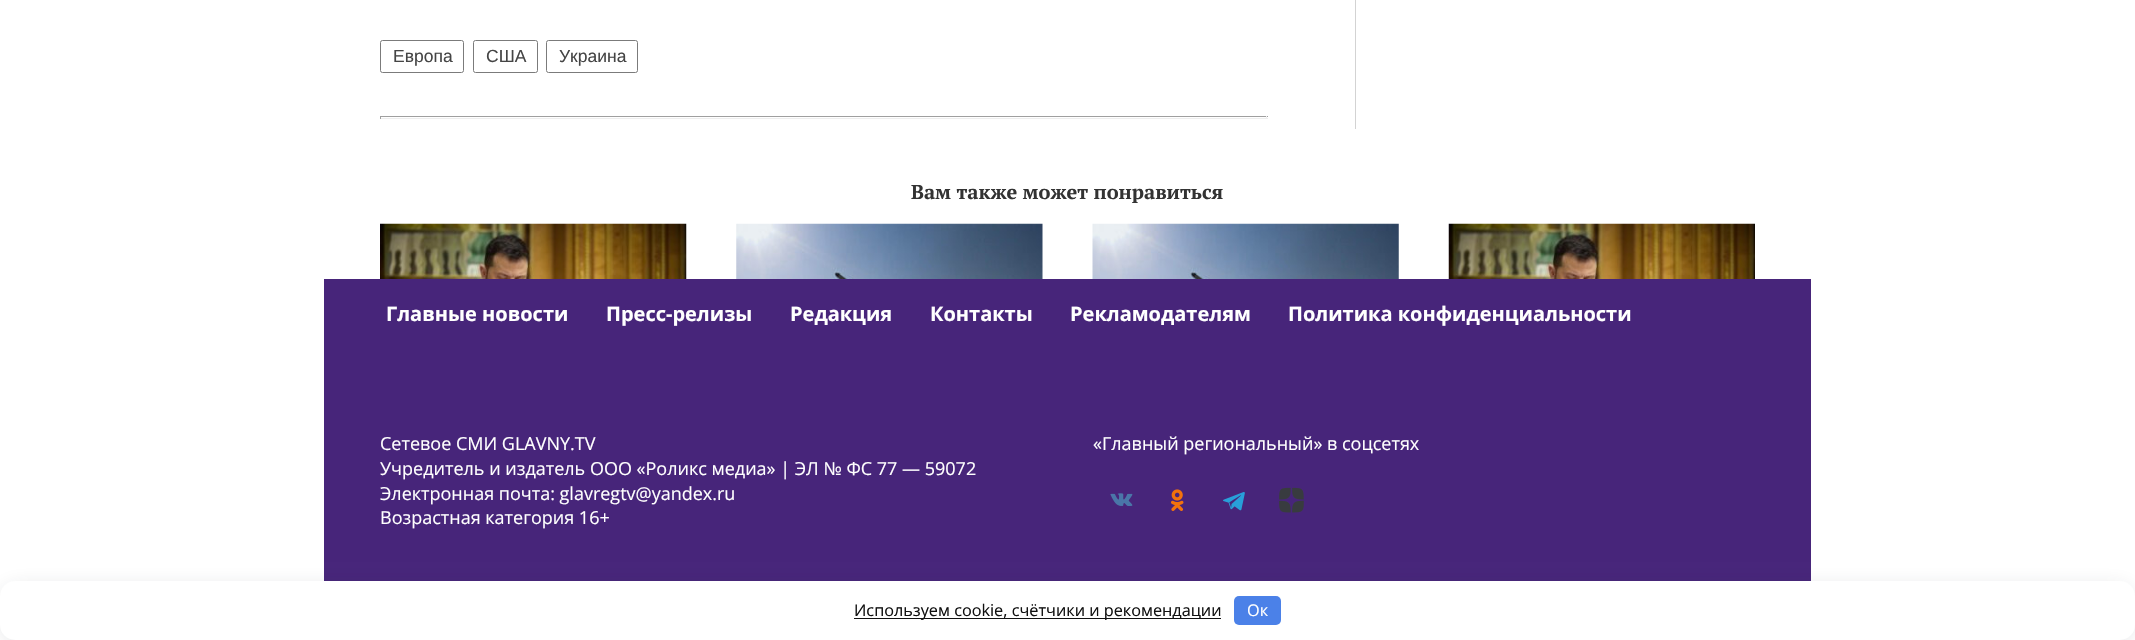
void draw(SkCanvas* canvas) {
    SkPaint paint;
    paint.setAntiAlias(true);
    auto face = [&](const char* family, int weight, float size, bool italic = false) {
        SkFontStyle style(weight, SkFontStyle::kNormal_Width,
            italic ? SkFontStyle::kItalic_Slant : SkFontStyle::kUpright_Slant);
        SkFont result(fontMgr->matchFamilyStyle(family, style), size);
        result.setSubpixel(true);
        return result;
    };
    auto write = [&](const char* s, float x, float y, const SkFont& font, SkColor color) {
        SkPaint ink(SkColor4f::FromColor(color));
        ink.setAntiAlias(true);
        canvas->drawString(s, x, y, font, ink);
    };
    auto block = [&](float x, float y, float w, float h, SkColor color) {
        SkPaint ink(SkColor4f::FromColor(color));
        ink.setAntiAlias(true);
        canvas->drawRect(SkRect::MakeXYWH(x, y, w, h), ink);
    };
    auto card = [&](float x, float y, float w, float h, float radius, SkColor color) {
        SkPaint ink(SkColor4f::FromColor(color));
        ink.setAntiAlias(true);
        canvas->drawRoundRect(SkRect::MakeXYWH(x, y, w, h), radius, radius, ink);
    };
    auto paste = [&](const char* path, float x, float y, float w, float h) {
        auto image = SkImages::DeferredFromEncodedData(SkData::MakeFromFileName(path));
        canvas->drawImageRect(image, SkRect::MakeXYWH(x, y, w, h), SkSamplingOptions());
    };
    canvas->clear(SK_ColorWHITE);
    paint.setStyle(SkPaint::kStroke_Style);
    paint.setStrokeWidth(1);
    paint.setColor(SkColorSetRGB(123, 123, 123));
    canvas->drawRoundRect(SkRect::MakeXYWH(380.5f, 40.5f, 83, 32), 2, 2, paint);
    auto kFont1 = face("Liberation Sans", 400, 17.5f);
    write("Европа", 393, 62, kFont1, SkColorSetRGB(69, 69, 69));
    canvas->drawRoundRect(SkRect::MakeXYWH(473.5f, 40.5f, 64, 32), 2, 2, paint);
    write("США", 486, 62, kFont1, SkColorSetRGB(69, 69, 69));
    canvas->drawRoundRect(SkRect::MakeXYWH(546.5f, 40.5f, 91, 32), 2, 2, paint);
    write("Украина", 559, 62, kFont1, SkColorSetRGB(69, 69, 69));
    block(380, 116, 888, 1, SkColorSetRGB(159, 159, 159));
    block(1266, 116, 1, 3, SkColorSetRGB(238, 238, 238));
    block(380, 118, 888, 1, SkColorSetRGB(238, 238, 238));
    block(380, 116, 1, 3, SkColorSetRGB(159, 159, 159));
    block(1355, 0, 1, 129, SkColorSetRGB(211, 211, 211));
    auto kFont2 = face("PT Serif", 700, 20);
    write("Вам также может понравиться", 911, 199, kFont2, SkColorSetRGB(51, 51, 51));
    paste("pic1.png", 380, 223, 307, 56);
    paste("pic2.png", 736, 223, 307, 56);
    paste("pic3.png", 1092, 223, 307, 56);
    paste("pic4.png", 1448, 223, 307, 56);
    block(324, 279, 1487, 302, SkColorSetRGB(71, 37, 122));
    auto kFont3 = face("Open Sans", 700, 20);
    write("Главные новости", 386, 321, kFont3, SK_ColorWHITE);
    write("Пресс-релизы", 606, 321, kFont3, SK_ColorWHITE);
    write("Редакция", 790, 321, kFont3, SK_ColorWHITE);
    write("Контакты", 930, 321, kFont3, SK_ColorWHITE);
    write("Рекламодателям", 1070, 321, kFont3, SK_ColorWHITE);
    write("Политика конфиденциальности", 1288, 321, kFont3, SK_ColorWHITE);
    auto kFont4 = face("Open Sans", 400, 18);
    write("Сетевое СМИ GLAVNY.TV", 380, 450, kFont4, SK_ColorWHITE);
    write("Учредитель и издатель ООО «Роликс медиа» | ЭЛ № ФС 77 — 59072", 380, 475, kFont4, SK_ColorWHITE);
    write("Электронная почта: glavregtv@yandex.ru", 380, 500, kFont4, SK_ColorWHITE);
    write("Возрастная категория 16+", 380, 524, kFont4, SK_ColorWHITE);
    write("«Главный региональный» в соцсетях", 1093, 450, kFont4, SK_ColorWHITE);
    paste("pic5.png", 1110, 493, 23, 13);
    paste("pic6.png", 1171, 489, 13, 22);
    paste("pic7.png", 1223, 492, 22, 19);
    paste("pic8.png", 1279, 487, 25, 26);
    paint.setStyle(SkPaint::kFill_Style);
    paint.setColor(SkColorSetARGB(51, 41, 44, 56));
    paint.setMaskFilter(SkMaskFilter::MakeBlur(kNormal_SkBlurStyle, 12.5f));
    canvas->drawRoundRect(SkRect::MakeXYWH(6, 591, 2123, 47), 9, 9, paint);
    paint.setMaskFilter(nullptr);
    card(0, 581, 2135, 59, 15, SK_ColorWHITE);
    block(854, 618, 367, 1, SkColorSetRGB(17, 17, 17));
    auto kFont5 = face("Open Sans", 400, 16.25f);
    write("Используем cookie, счётчики и рекомендации", 854, 616, kFont5, SkColorSetRGB(17, 17, 17));
    card(1234, 596, 47, 29, 5, SkColorSetRGB(75, 129, 232));
    write("Ок", 1247, 616, kFont5, SK_ColorWHITE);
}
